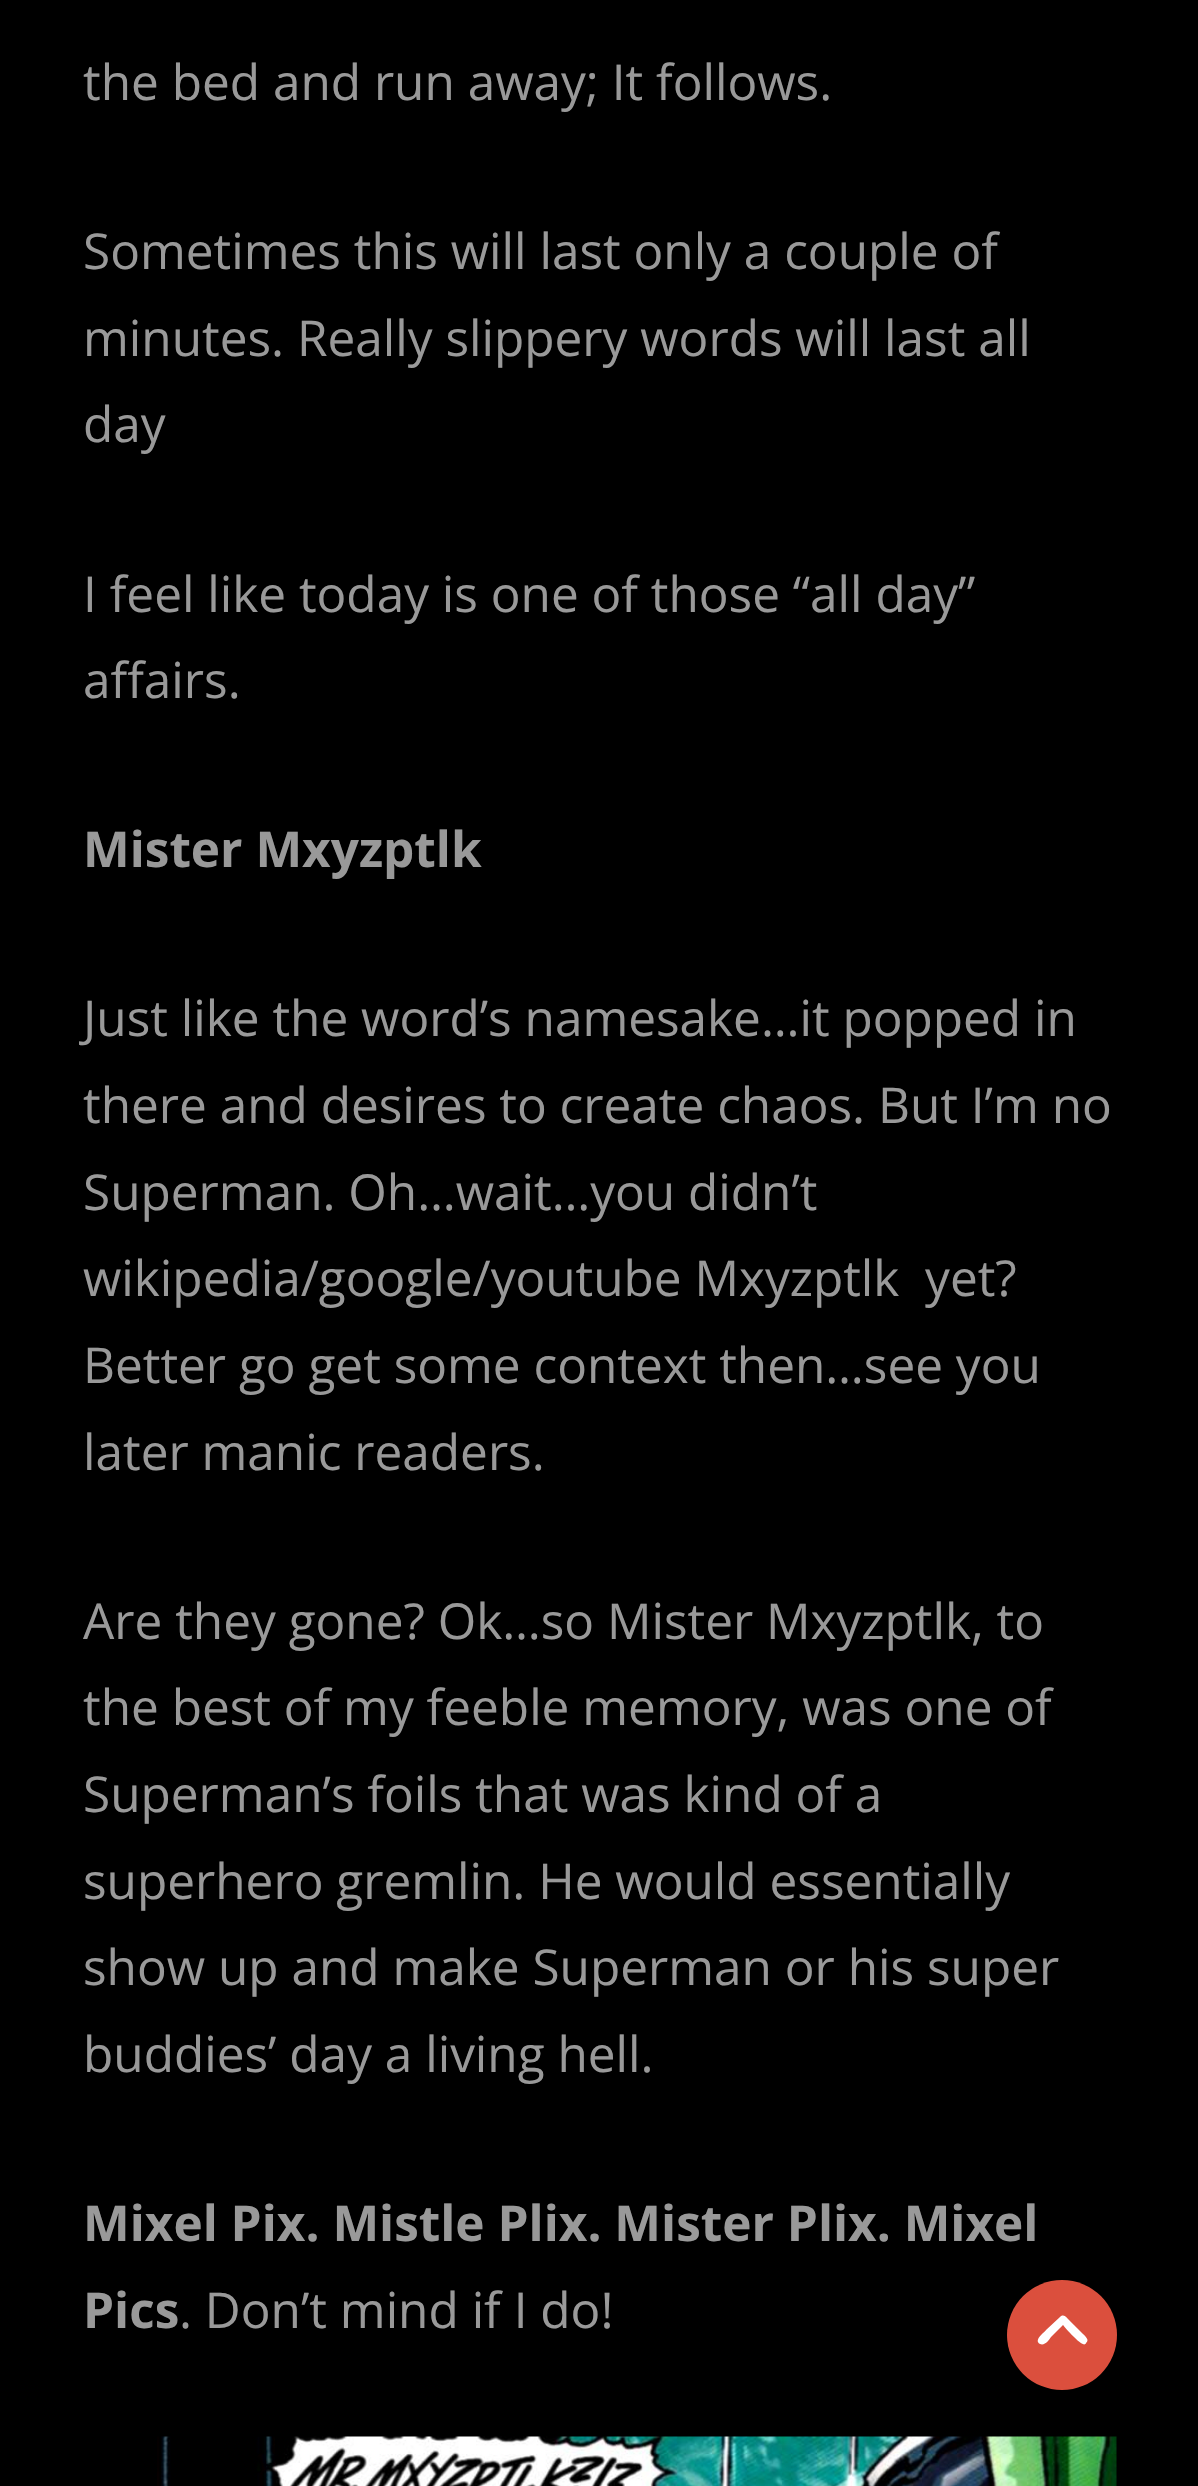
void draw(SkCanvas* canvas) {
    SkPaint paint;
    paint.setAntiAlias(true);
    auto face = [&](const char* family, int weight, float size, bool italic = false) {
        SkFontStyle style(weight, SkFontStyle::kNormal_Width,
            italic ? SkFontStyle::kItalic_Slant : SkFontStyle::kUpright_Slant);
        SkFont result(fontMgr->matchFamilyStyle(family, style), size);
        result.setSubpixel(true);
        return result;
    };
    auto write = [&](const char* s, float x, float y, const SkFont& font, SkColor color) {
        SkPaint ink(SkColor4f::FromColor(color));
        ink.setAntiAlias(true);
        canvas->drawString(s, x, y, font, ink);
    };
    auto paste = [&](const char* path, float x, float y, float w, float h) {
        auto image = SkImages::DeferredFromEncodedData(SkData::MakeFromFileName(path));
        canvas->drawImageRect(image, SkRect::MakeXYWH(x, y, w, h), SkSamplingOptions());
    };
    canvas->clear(SK_ColorBLACK);
    auto kFont1 = face("Open Sans", 400, 49.5f);
    write("the bed and run away; It follows.", 83, 100, kFont1, SkColorSetRGB(153, 153, 153));
    write("Sometimes this will last only a couple of", 83, 269, kFont1, SkColorSetRGB(153, 153, 153));
    write("minutes. Really slippery words will last all", 83, 356, kFont1, SkColorSetRGB(153, 153, 153));
    write("day", 83, 442, kFont1, SkColorSetRGB(153, 153, 153));
    write("I feel like today is one of those “all day”", 83, 612, kFont1, SkColorSetRGB(153, 153, 153));
    write("affairs.", 83, 698, kFont1, SkColorSetRGB(153, 153, 153));
    auto kFont2 = face("Open Sans", 700, 49.5f);
    write("Mister Mxyzptlk", 83, 867, kFont2, SkColorSetRGB(153, 153, 153));
    write("Just like the word’s namesake…it popped in", 83, 1036, kFont1, SkColorSetRGB(153, 153, 153));
    write("there and desires to create chaos. But I’m no", 83, 1123, kFont1, SkColorSetRGB(153, 153, 153));
    write("Superman. Oh…wait…you didn’t", 83, 1210, kFont1, SkColorSetRGB(153, 153, 153));
    write("wikipedia/google/youtube Mxyzptlk  yet?", 83, 1296, kFont1, SkColorSetRGB(153, 153, 153));
    write("Better go get some context then…see you", 83, 1383, kFont1, SkColorSetRGB(153, 153, 153));
    write("later manic readers.", 83, 1470, kFont1, SkColorSetRGB(153, 153, 153));
    write("Are they gone? Ok…so Mister Mxyzptlk, to", 83, 1639, kFont1, SkColorSetRGB(153, 153, 153));
    write("the best of my feeble memory, was one of", 83, 1725, kFont1, SkColorSetRGB(153, 153, 153));
    write("Superman’s foils that was kind of a", 83, 1812, kFont1, SkColorSetRGB(153, 153, 153));
    write("superhero gremlin. He would essentially", 83, 1899, kFont1, SkColorSetRGB(153, 153, 153));
    write("show up and make Superman or his super", 83, 1985, kFont1, SkColorSetRGB(153, 153, 153));
    write("buddies’ day a living hell.", 83, 2072, kFont1, SkColorSetRGB(153, 153, 153));
    write("Mixel Pix. Mistle Plix. Mister Plix. Mixel", 83, 2241, kFont2, SkColorSetRGB(153, 153, 153));
    write("Pics", 83, 2328, kFont2, SkColorSetRGB(153, 153, 153));
    write(". Don’t mind if I do!", 179, 2328, kFont1, SkColorSetRGB(153, 153, 153));
    paste("pic1.png", 157, 2436, 960, 50);
    paint.setColor(SkColorSetRGB(219, 79, 61));
    canvas->drawCircle(1062, 2335, 55, paint);
    paint.setColor(SK_ColorWHITE);
    canvas->drawPath(SkPathBuilder().moveTo(1060, 2317).cubicTo(1064, 2313, 1067, 2318, 1069, 2320).lineTo(1083, 2334).cubicTo(1085, 2336, 1090, 2340, 1086, 2343).cubicTo(1086, 2344, 1084, 2345, 1083, 2344).cubicTo(1080, 2344, 1066, 2329, 1063, 2325).lineTo(1051, 2337).cubicTo(1049, 2340, 1045, 2346, 1040, 2344).cubicTo(1033, 2340, 1045, 2332, 1046, 2330).close().detach(), paint);
}
